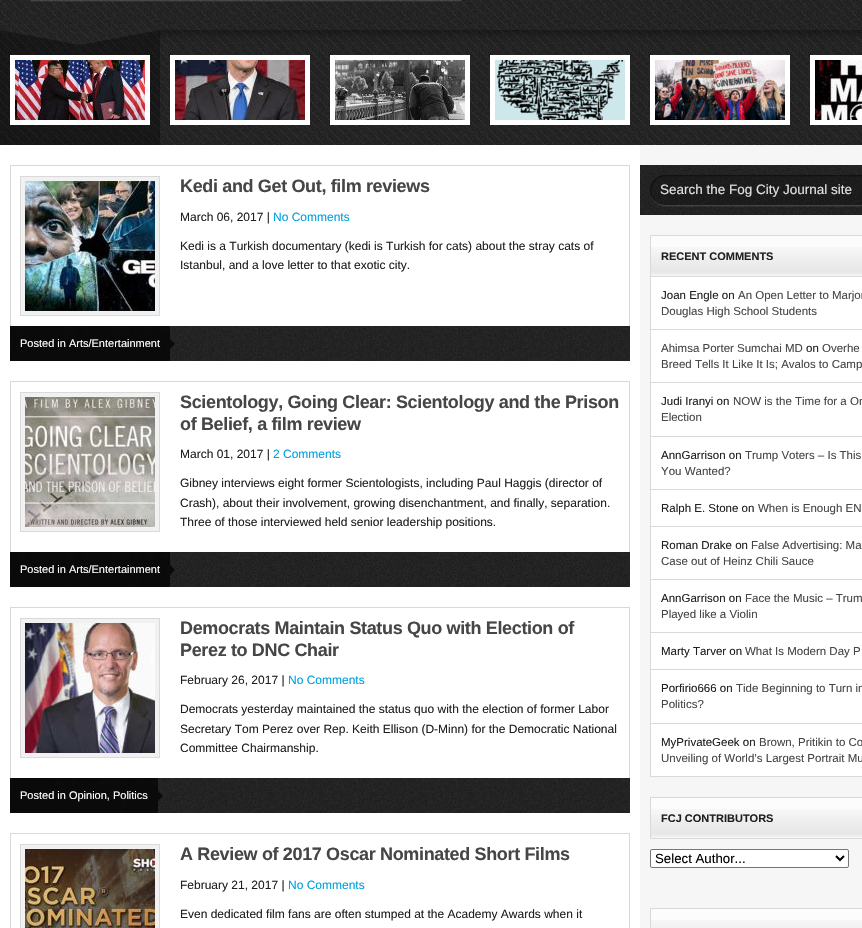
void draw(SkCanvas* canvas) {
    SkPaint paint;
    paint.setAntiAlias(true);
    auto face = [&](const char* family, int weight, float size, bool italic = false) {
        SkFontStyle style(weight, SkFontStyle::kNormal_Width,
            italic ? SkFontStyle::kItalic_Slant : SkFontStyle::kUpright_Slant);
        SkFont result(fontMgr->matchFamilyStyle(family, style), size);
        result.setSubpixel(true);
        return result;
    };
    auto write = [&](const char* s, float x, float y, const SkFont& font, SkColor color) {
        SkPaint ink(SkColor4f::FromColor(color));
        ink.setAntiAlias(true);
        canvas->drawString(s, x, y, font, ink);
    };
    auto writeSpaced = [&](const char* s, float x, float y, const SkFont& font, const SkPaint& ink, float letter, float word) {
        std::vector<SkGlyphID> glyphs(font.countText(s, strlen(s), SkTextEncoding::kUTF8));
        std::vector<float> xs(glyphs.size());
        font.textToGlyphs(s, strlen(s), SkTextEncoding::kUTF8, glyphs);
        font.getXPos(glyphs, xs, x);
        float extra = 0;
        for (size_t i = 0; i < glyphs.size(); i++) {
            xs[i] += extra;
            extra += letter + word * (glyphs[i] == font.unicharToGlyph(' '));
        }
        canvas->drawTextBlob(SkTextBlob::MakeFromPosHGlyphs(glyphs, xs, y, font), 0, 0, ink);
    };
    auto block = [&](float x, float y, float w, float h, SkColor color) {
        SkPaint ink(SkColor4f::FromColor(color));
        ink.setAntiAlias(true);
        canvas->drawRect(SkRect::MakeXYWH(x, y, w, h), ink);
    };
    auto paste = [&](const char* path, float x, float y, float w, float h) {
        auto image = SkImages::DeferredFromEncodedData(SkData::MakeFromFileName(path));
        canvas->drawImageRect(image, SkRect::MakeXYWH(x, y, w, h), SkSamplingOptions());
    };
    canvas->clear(SK_ColorWHITE);
    paste("pic1.png", 0, 0, 862, 30);
    paste("pic2.png", 0, 30, 160, 115);
    paste("pic3.png", 15, 60, 130, 60);
    paste("pic4.png", 160, 30, 160, 115);
    paste("pic5.png", 175, 60, 130, 60);
    paste("pic4.png", 320, 30, 160, 115);
    paste("pic6.png", 335, 60, 130, 60);
    paste("pic4.png", 480, 30, 160, 115);
    paste("pic7.png", 495, 60, 130, 60);
    paste("pic4.png", 640, 30, 160, 115);
    paste("pic8.png", 655, 60, 130, 60);
    paste("pic9.png", 800, 30, 62, 115);
    paste("pic10.png", 815, 60, 47, 60);
    block(640, 145, 222, 783, SkColorSetRGB(246, 246, 246));
    block(10, 165, 620, 1, SkColorSetRGB(217, 217, 217));
    block(629, 165, 1, 161, SkColorSetRGB(217, 217, 217));
    block(10, 165, 1, 161, SkColorSetRGB(217, 217, 217));
    paint.setColor(SkColorSetRGB(241, 241, 241));
    canvas->drawRect(SkRect::MakeXYWH(20.5f, 176.5f, 139, 139), paint);
    paint.setStyle(SkPaint::kStroke_Style);
    paint.setStrokeWidth(1);
    paint.setColor(SkColorSetRGB(217, 217, 217));
    canvas->drawRect(SkRect::MakeXYWH(20.5f, 176.5f, 139, 139), paint);
    paste("pic11.png", 25, 181, 130, 130);
    auto kFont1 = face("Liberation Sans", 700, 18);
    paint.setStyle(SkPaint::kFill_Style);
    paint.setColor(SkColorSetRGB(70, 70, 70));
    writeSpaced("Kedi and Get Out, film reviews", 180, 192, kFont1, paint, -0.35f, 0);
    auto kFont2 = face("Liberation Sans", 400, 12);
    write("March 06, 2017 |", 180, 221, kFont2, SkColorSetRGB(32, 32, 32));
    write("No Comments", 273, 221, kFont2, SkColorSetRGB(0, 161, 222));
    write("Kedi is a Turkish documentary (kedi is Turkish for cats) about the stray cats of", 180, 250, kFont2, SkColorSetRGB(32, 32, 32));
    write("Istanbul, and a love letter to that exotic city.", 180, 269, kFont2, SkColorSetRGB(32, 32, 32));
    paste("pic12.png", 175, 326, 455, 35);
    paste("pic13.png", 10, 326, 165, 35);
    auto kFont3 = face("Liberation Sans", 400, 11);
    write("Posted in Arts/Entertainment", 20, 347, kFont3, SK_ColorWHITE);
    block(10, 381, 620, 1, SkColorSetRGB(217, 217, 217));
    block(629, 381, 1, 171, SkColorSetRGB(217, 217, 217));
    block(10, 381, 1, 171, SkColorSetRGB(217, 217, 217));
    paint.setColor(SkColorSetRGB(241, 241, 241));
    canvas->drawRect(SkRect::MakeXYWH(20.5f, 392.5f, 139, 139), paint);
    paint.setStyle(SkPaint::kStroke_Style);
    paint.setColor(SkColorSetRGB(217, 217, 217));
    canvas->drawRect(SkRect::MakeXYWH(20.5f, 392.5f, 139, 139), paint);
    paste("pic14.png", 25, 397, 130, 130);
    paint.setStyle(SkPaint::kFill_Style);
    paint.setColor(SkColorSetRGB(70, 70, 70));
    writeSpaced("Scientology, Going Clear: Scientology and the Prison", 180, 408, kFont1, paint, -0.35f, 0);
    writeSpaced("of Belief, a film review", 180, 430, kFont1, paint, -0.35f, 0);
    write("March 01, 2017 |", 180, 458, kFont2, SkColorSetRGB(32, 32, 32));
    write("2 Comments", 273, 458, kFont2, SkColorSetRGB(0, 161, 222));
    write("Gibney interviews eight former Scientologists, including Paul Haggis (director of", 180, 487, kFont2, SkColorSetRGB(32, 32, 32));
    write("Crash), about their involvement, growing disenchantment, and finally, separation.", 180, 507, kFont2, SkColorSetRGB(32, 32, 32));
    write("Three of those interviewed held senior leadership positions.", 180, 526, kFont2, SkColorSetRGB(32, 32, 32));
    paste("pic12.png", 175, 552, 455, 35);
    paste("pic13.png", 10, 552, 165, 35);
    write("Posted in Arts/Entertainment", 20, 573, kFont3, SK_ColorWHITE);
    block(10, 607, 620, 1, SkColorSetRGB(217, 217, 217));
    block(629, 607, 1, 171, SkColorSetRGB(217, 217, 217));
    block(10, 607, 1, 171, SkColorSetRGB(217, 217, 217));
    paint.setColor(SkColorSetRGB(241, 241, 241));
    canvas->drawRect(SkRect::MakeXYWH(20.5f, 618.5f, 139, 139), paint);
    paint.setStyle(SkPaint::kStroke_Style);
    paint.setColor(SkColorSetRGB(217, 217, 217));
    canvas->drawRect(SkRect::MakeXYWH(20.5f, 618.5f, 139, 139), paint);
    paste("pic15.png", 25, 623, 130, 130);
    paint.setStyle(SkPaint::kFill_Style);
    paint.setColor(SkColorSetRGB(70, 70, 70));
    writeSpaced("Democrats Maintain Status Quo with Election of", 180, 634, kFont1, paint, -0.35f, 0);
    writeSpaced("Perez to DNC Chair", 180, 656, kFont1, paint, -0.35f, 0);
    write("February 26, 2017 |", 180, 684, kFont2, SkColorSetRGB(32, 32, 32));
    write("No Comments", 288, 684, kFont2, SkColorSetRGB(0, 161, 222));
    write("Democrats yesterday maintained the status quo with the election of former Labor", 180, 713, kFont2, SkColorSetRGB(32, 32, 32));
    write("Secretary Tom Perez over Rep. Keith Ellison (D-Minn) for the Democratic National", 180, 733, kFont2, SkColorSetRGB(32, 32, 32));
    write("Committee Chairmanship.", 180, 752, kFont2, SkColorSetRGB(32, 32, 32));
    paste("pic16.png", 163, 778, 467, 35);
    paste("pic17.png", 10, 778, 153, 35);
    write("Posted in Opinion, Politics", 20, 799, kFont3, SK_ColorWHITE);
    block(10, 833, 620, 1, SkColorSetRGB(217, 217, 217));
    block(629, 833, 1, 95, SkColorSetRGB(217, 217, 217));
    block(10, 833, 1, 95, SkColorSetRGB(217, 217, 217));
    paint.setColor(SkColorSetRGB(241, 241, 241));
    canvas->drawRect(SkRect::MakeXYWH(20.5f, 844.5f, 139, 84), paint);
    paint.setStyle(SkPaint::kStroke_Style);
    paint.setColor(SkColorSetRGB(217, 217, 217));
    canvas->drawRect(SkRect::MakeXYWH(20.5f, 844.5f, 139, 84), paint);
    paste("pic18.png", 25, 849, 130, 79);
    paint.setStyle(SkPaint::kFill_Style);
    paint.setColor(SkColorSetRGB(70, 70, 70));
    writeSpaced("A Review of 2017 Oscar Nominated Short Films", 180, 860, kFont1, paint, -0.35f, 0);
    write("February 21, 2017 |", 180, 889, kFont2, SkColorSetRGB(32, 32, 32));
    write("No Comments", 288, 889, kFont2, SkColorSetRGB(0, 161, 222));
    write("Even dedicated film fans are often stumped at the Academy Awards when it", 180, 918, kFont2, SkColorSetRGB(32, 32, 32));
    paste("pic19.png", 640, 165, 222, 50);
    auto kFont4 = face("Liberation Sans", 400, 13.5f);
    write("Search the Fog City Journal site", 660, 194, kFont4, SkColorSetRGB(224, 224, 224));
    block(651, 236, 211, 11, SkColorSetRGB(252, 252, 252));
    paste("pic20.png", 651, 247, 211, 29);
    paint.setStyle(SkPaint::kStroke_Style);
    paint.setColor(SkColorSetRGB(217, 217, 217));
    canvas->drawRect(SkRect::MakeXYWH(650.5f, 235.5f, 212, 41), paint);
    auto kFont5 = face("Liberation Sans", 700, 11);
    write("RECENT COMMENTS", 661, 260, kFont5, SkColorSetRGB(32, 32, 32));
    block(651, 277, 211, 52, SK_ColorWHITE);
    block(650, 329, 212, 1, SkColorSetRGB(217, 217, 217));
    block(650, 277, 1, 53, SkColorSetRGB(217, 217, 217));
    auto kFont6 = face("Liberation Sans", 400, 11.5f);
    write("Joan Engle on", 661, 299, kFont6, SkColorSetRGB(32, 32, 32));
    write("An Open Letter to Marjor", 738, 299, kFont6, SkColorSetRGB(70, 70, 70));
    write("Douglas High School Students", 661, 315, kFont6, SkColorSetRGB(70, 70, 70));
    block(651, 330, 211, 52, SK_ColorWHITE);
    block(650, 382, 212, 1, SkColorSetRGB(217, 217, 217));
    block(650, 330, 1, 53, SkColorSetRGB(217, 217, 217));
    write("Ahimsa Porter Sumchai MD", 661, 352, kFont6, SkColorSetRGB(70, 70, 70));
    write("on", 806, 352, kFont6, SkColorSetRGB(32, 32, 32));
    write("Overhe", 822, 352, kFont6, SkColorSetRGB(70, 70, 70));
    write("Breed Tells It Like It Is; Avalos to Camp", 661, 368, kFont6, SkColorSetRGB(70, 70, 70));
    block(651, 383, 211, 53, SK_ColorWHITE);
    block(650, 436, 212, 1, SkColorSetRGB(217, 217, 217));
    block(650, 383, 1, 54, SkColorSetRGB(217, 217, 217));
    write("Judi Iranyi on", 661, 405, kFont6, SkColorSetRGB(32, 32, 32));
    write("NOW is the Time for a On", 733, 405, kFont6, SkColorSetRGB(70, 70, 70));
    write("Election", 661, 421, kFont6, SkColorSetRGB(70, 70, 70));
    block(651, 437, 211, 52, SK_ColorWHITE);
    block(650, 489, 212, 1, SkColorSetRGB(217, 217, 217));
    block(650, 437, 1, 53, SkColorSetRGB(217, 217, 217));
    write("AnnGarrison on", 661, 459, kFont6, SkColorSetRGB(32, 32, 32));
    write("Trump Voters – Is This", 745, 459, kFont6, SkColorSetRGB(70, 70, 70));
    write("You Wanted?", 661, 475, kFont6, SkColorSetRGB(70, 70, 70));
    block(651, 490, 211, 36, SK_ColorWHITE);
    block(650, 526, 212, 1, SkColorSetRGB(217, 217, 217));
    block(650, 490, 1, 37, SkColorSetRGB(217, 217, 217));
    write("Ralph E. Stone on", 661, 512, kFont6, SkColorSetRGB(32, 32, 32));
    write("When is Enough EN", 758, 512, kFont6, SkColorSetRGB(70, 70, 70));
    block(651, 527, 211, 52, SK_ColorWHITE);
    block(650, 579, 212, 1, SkColorSetRGB(217, 217, 217));
    block(650, 527, 1, 53, SkColorSetRGB(217, 217, 217));
    write("Roman Drake on", 661, 549, kFont6, SkColorSetRGB(32, 32, 32));
    write("False Advertising: Ma", 751, 549, kFont6, SkColorSetRGB(70, 70, 70));
    write("Case out of Heinz Chili Sauce", 661, 565, kFont6, SkColorSetRGB(70, 70, 70));
    block(651, 580, 211, 52, SK_ColorWHITE);
    block(650, 632, 212, 1, SkColorSetRGB(217, 217, 217));
    block(650, 580, 1, 53, SkColorSetRGB(217, 217, 217));
    write("AnnGarrison on", 661, 602, kFont6, SkColorSetRGB(32, 32, 32));
    write("Face the Music – Trum", 745, 602, kFont6, SkColorSetRGB(70, 70, 70));
    write("Played like a Violin", 661, 618, kFont6, SkColorSetRGB(70, 70, 70));
    block(651, 633, 211, 36, SK_ColorWHITE);
    block(650, 669, 212, 1, SkColorSetRGB(217, 217, 217));
    block(650, 633, 1, 37, SkColorSetRGB(217, 217, 217));
    write("Marty Tarver on", 661, 655, kFont6, SkColorSetRGB(32, 32, 32));
    write("What Is Modern Day P", 745, 655, kFont6, SkColorSetRGB(70, 70, 70));
    block(651, 670, 211, 53, SK_ColorWHITE);
    block(650, 723, 212, 1, SkColorSetRGB(217, 217, 217));
    block(650, 670, 1, 54, SkColorSetRGB(217, 217, 217));
    write("Porfirio666 on", 661, 692, kFont6, SkColorSetRGB(32, 32, 32));
    write("Tide Beginning to Turn in", 736, 692, kFont6, SkColorSetRGB(70, 70, 70));
    write("Politics?", 661, 708, kFont6, SkColorSetRGB(70, 70, 70));
    block(651, 724, 211, 52, SK_ColorWHITE);
    block(650, 776, 212, 1, SkColorSetRGB(217, 217, 217));
    block(650, 724, 1, 53, SkColorSetRGB(217, 217, 217));
    write("MyPrivateGeek on", 661, 746, kFont6, SkColorSetRGB(32, 32, 32));
    write("Brown, Pritikin to Co", 759, 746, kFont6, SkColorSetRGB(70, 70, 70));
    write("Unveiling of World’s Largest Portrait Mu", 661, 762, kFont6, SkColorSetRGB(70, 70, 70));
    block(651, 798, 211, 11, SkColorSetRGB(252, 252, 252));
    paste("pic20.png", 651, 809, 211, 29);
    canvas->drawRect(SkRect::MakeXYWH(650.5f, 797.5f, 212, 41), paint);
    write("FCJ CONTRIBUTORS", 661, 822, kFont5, SkColorSetRGB(32, 32, 32));
    paint.setStyle(SkPaint::kFill_Style);
    paint.setColor(SK_ColorWHITE);
    canvas->drawRoundRect(SkRect::MakeXYWH(650.5f, 849.5f, 198, 18), 1.5f, 1.5f, paint);
    paint.setStyle(SkPaint::kStroke_Style);
    paint.setColor(SkColorSetRGB(118, 118, 118));
    canvas->drawRoundRect(SkRect::MakeXYWH(650.5f, 849.5f, 198, 18), 1.5f, 1.5f, paint);
    paint.setStrokeWidth(2);
    paint.setColor(SK_ColorBLACK);
    canvas->drawPath(SkPathBuilder().moveTo(836, 856).lineTo(840, 860).lineTo(844, 856).detach(), paint);
    auto kFont7 = face("Liberation Sans", 400, 13.25f);
    write("Select Author...", 655, 863, kFont7, SK_ColorBLACK);
    block(651, 909, 211, 11, SkColorSetRGB(252, 252, 252));
    paste("pic21.png", 651, 920, 211, 8);
    paint.setStrokeWidth(1);
    paint.setColor(SkColorSetRGB(217, 217, 217));
    canvas->drawRect(SkRect::MakeXYWH(650.5f, 908.5f, 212, 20), paint);
}
